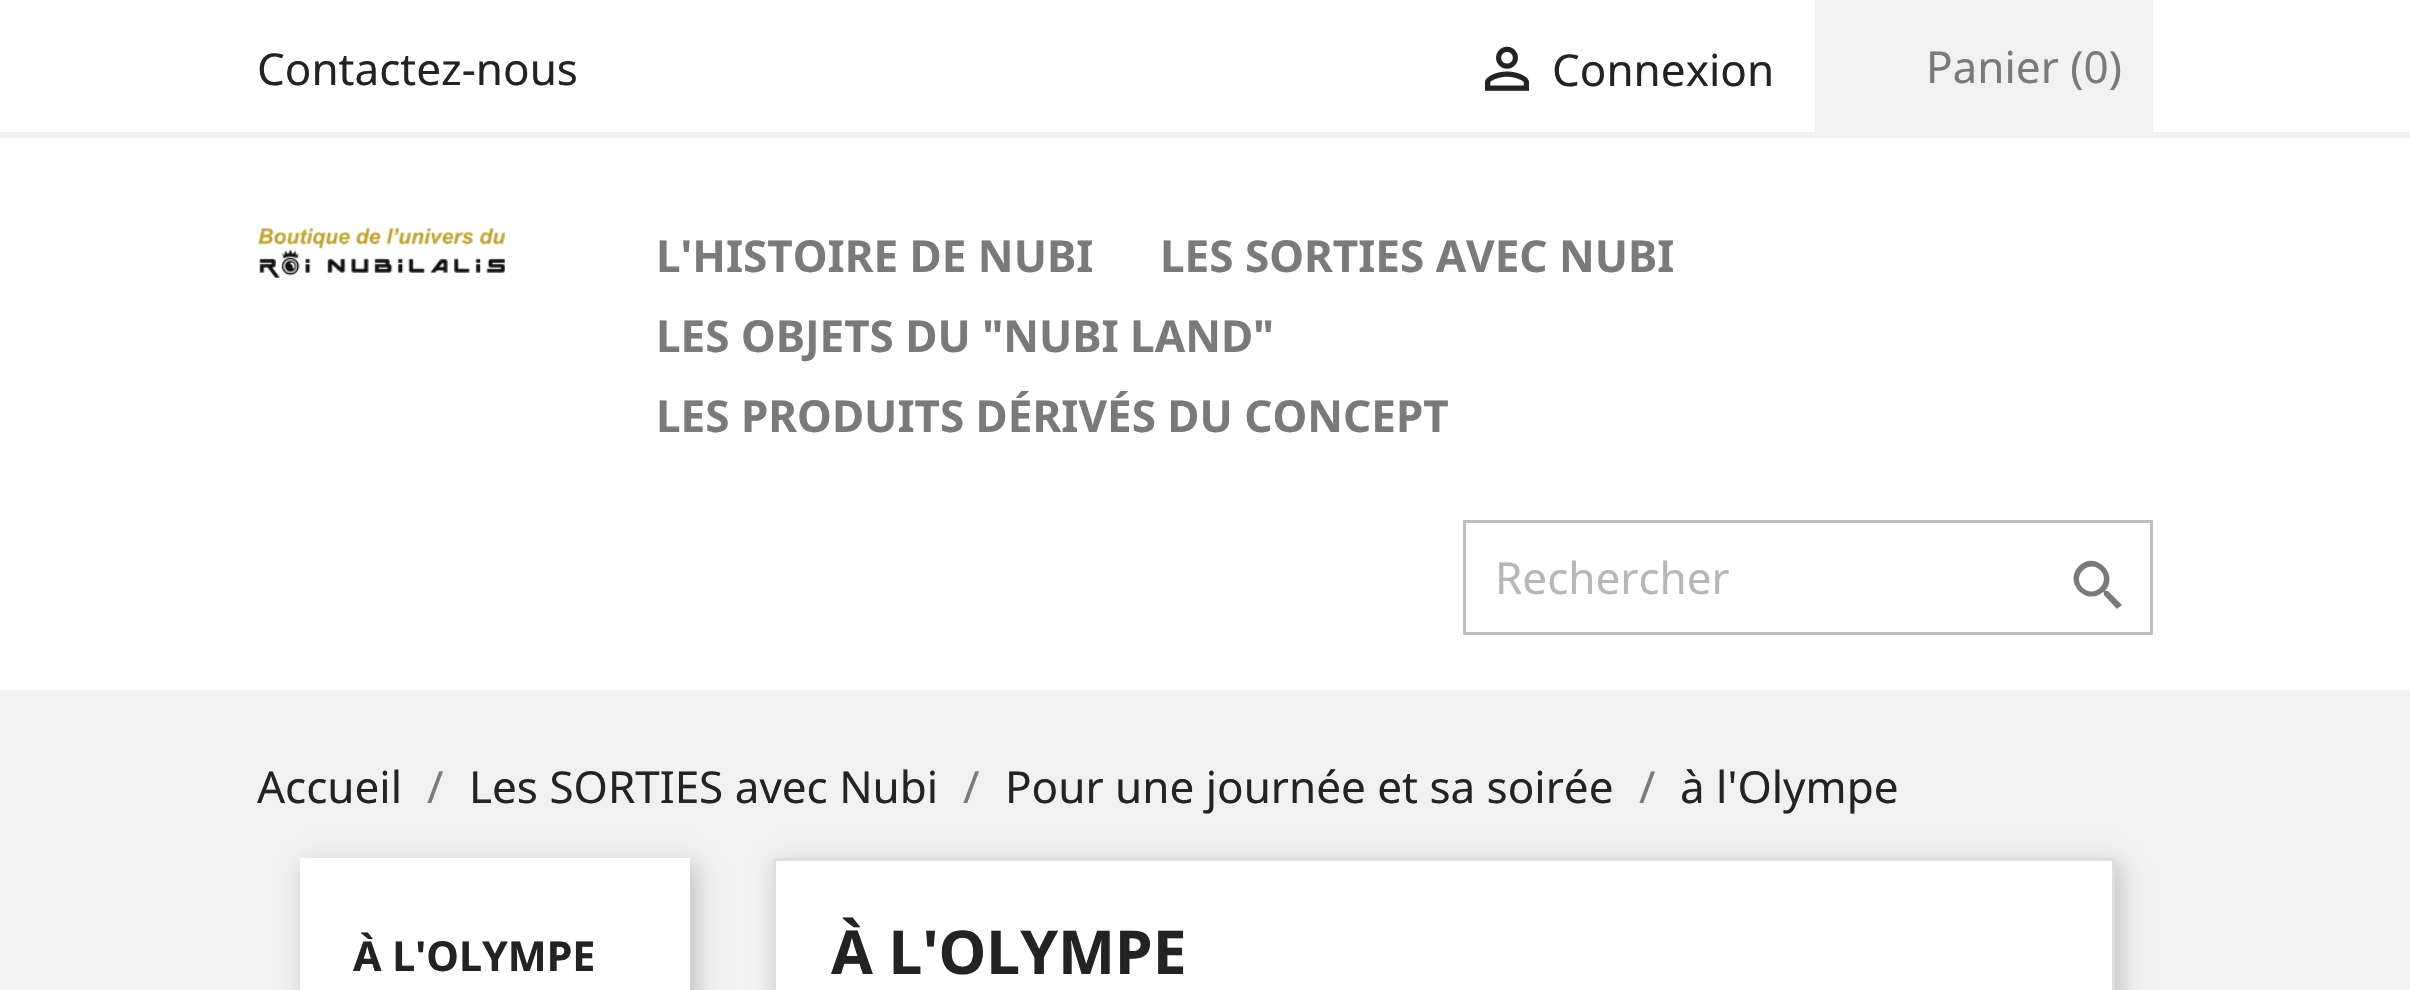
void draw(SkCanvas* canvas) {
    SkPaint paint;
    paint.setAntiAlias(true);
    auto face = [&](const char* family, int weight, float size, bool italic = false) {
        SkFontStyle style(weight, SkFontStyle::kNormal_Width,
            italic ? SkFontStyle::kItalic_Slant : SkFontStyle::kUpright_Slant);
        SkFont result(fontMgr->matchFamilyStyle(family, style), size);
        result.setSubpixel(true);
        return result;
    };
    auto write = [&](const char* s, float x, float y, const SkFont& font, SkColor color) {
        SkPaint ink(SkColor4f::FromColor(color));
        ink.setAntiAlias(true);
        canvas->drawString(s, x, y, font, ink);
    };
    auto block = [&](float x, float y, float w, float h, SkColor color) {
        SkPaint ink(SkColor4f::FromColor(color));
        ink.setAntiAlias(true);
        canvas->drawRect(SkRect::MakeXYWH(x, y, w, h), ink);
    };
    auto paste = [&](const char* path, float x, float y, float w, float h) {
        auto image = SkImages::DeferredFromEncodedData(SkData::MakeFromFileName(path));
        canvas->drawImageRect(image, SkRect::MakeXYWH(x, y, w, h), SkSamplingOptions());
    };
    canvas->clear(SK_ColorWHITE);
    block(0, 132, 2410, 6, SkColorSetRGB(241, 241, 241));
    auto kFont1 = face("Noto Sans", 400, 44);
    write("Contactez-nous", 257, 85, kFont1, SkColorSetRGB(35, 35, 35));
    paste("pic1.png", 1484, 46, 46, 45);
    write("Connexion", 1552, 86, kFont1, SkColorSetRGB(35, 35, 35));
    block(1815, 0, 338, 132, SkColorSetRGB(241, 241, 241));
    write("Panier (0)", 1926, 83, kFont1, SkColorSetRGB(122, 122, 122));
    paste("pic2.png", 258, 228, 247, 50);
    auto kFont2 = face("Noto Sans", 700, 44);
    write("L'HISTOIRE DE NUBI", 656, 272, kFont2, SkColorSetRGB(122, 122, 122));
    write("LES SORTIES AVEC NUBI", 1160, 272, kFont2, SkColorSetRGB(122, 122, 122));
    write("LES OBJETS DU \"NUBI LAND\"", 656, 352, kFont2, SkColorSetRGB(122, 122, 122));
    write("LES PRODUITS DÉRIVÉS DU CONCEPT", 656, 432, kFont2, SkColorSetRGB(122, 122, 122));
    paint.setStyle(SkPaint::kStroke_Style);
    paint.setStrokeWidth(3);
    paint.setColor(SkColorSetRGB(191, 191, 191));
    canvas->drawRect(SkRect::MakeXYWH(1464.5f, 521.5f, 687, 112), paint);
    write("Rechercher", 1495, 594, kFont1, SkColorSetRGB(183, 183, 183));
    paint.setStyle(SkPaint::kFill_Style);
    paint.setColor(SkColorSetRGB(122, 122, 122));
    canvas->drawPath(SkPathBuilder().moveTo(2083, 588).cubicTo(2094, 599, 2112, 582, 2100, 570).cubicTo(2089, 559, 2071, 576, 2083, 588).close().moveTo(2108, 591).lineTo(2122, 605).lineTo(2117, 609).lineTo(2104, 595).lineTo(2104, 593).lineTo(2103, 592).cubicTo(2086, 607, 2063, 582, 2079, 566).cubicTo(2095, 550, 2120, 574, 2105, 591).lineTo(2106, 591).close().detach(), paint);
    block(0, 690, 2410, 300, SkColorSetRGB(241, 241, 241));
    write("Accueil", 257, 803, kFont1, SkColorSetRGB(35, 35, 35));
    write("/", 427, 803, kFont1, SkColorSetRGB(122, 122, 122));
    write("Les SORTIES avec Nubi", 469, 803, kFont1, SkColorSetRGB(35, 35, 35));
    write("/", 963, 803, kFont1, SkColorSetRGB(122, 122, 122));
    write("Pour une journée et sa soirée", 1005, 803, kFont1, SkColorSetRGB(35, 35, 35));
    write("/", 1639, 803, kFont1, SkColorSetRGB(122, 122, 122));
    write("à l'Olympe", 1680, 803, kFont1, SkColorSetRGB(35, 35, 35));
    paint.setColor(SkColorSetARGB(51, 0, 0, 0));
    paint.setMaskFilter(SkMaskFilter::MakeBlur(kNormal_SkBlurStyle, 11));
    canvas->drawRect(SkRect::MakeXYWH(305, 864, 391, 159), paint);
    paint.setMaskFilter(nullptr);
    block(300, 858, 390, 132, SK_ColorWHITE);
    auto kFont3 = face("Noto Sans", 700, 41.25f);
    write("À L'OLYMPE", 353, 971, kFont3, SkColorSetRGB(35, 35, 35));
    paint.setMaskFilter(SkMaskFilter::MakeBlur(kNormal_SkBlurStyle, 11));
    canvas->drawRect(SkRect::MakeXYWH(778, 864, 1342, 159), paint);
    paint.setMaskFilter(nullptr);
    paint.setColor(SK_ColorWHITE);
    canvas->drawRect(SkRect::MakeXYWH(774.5f, 859.5f, 1339, 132), paint);
    paint.setStyle(SkPaint::kStroke_Style);
    paint.setColor(SkColorSetRGB(223, 223, 223));
    canvas->drawRect(SkRect::MakeXYWH(774.5f, 859.5f, 1339, 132), paint);
    auto kFont4 = face("Noto Sans", 700, 60.5f);
    write("À L'OLYMPE", 831, 974, kFont4, SkColorSetRGB(35, 35, 35));
}
